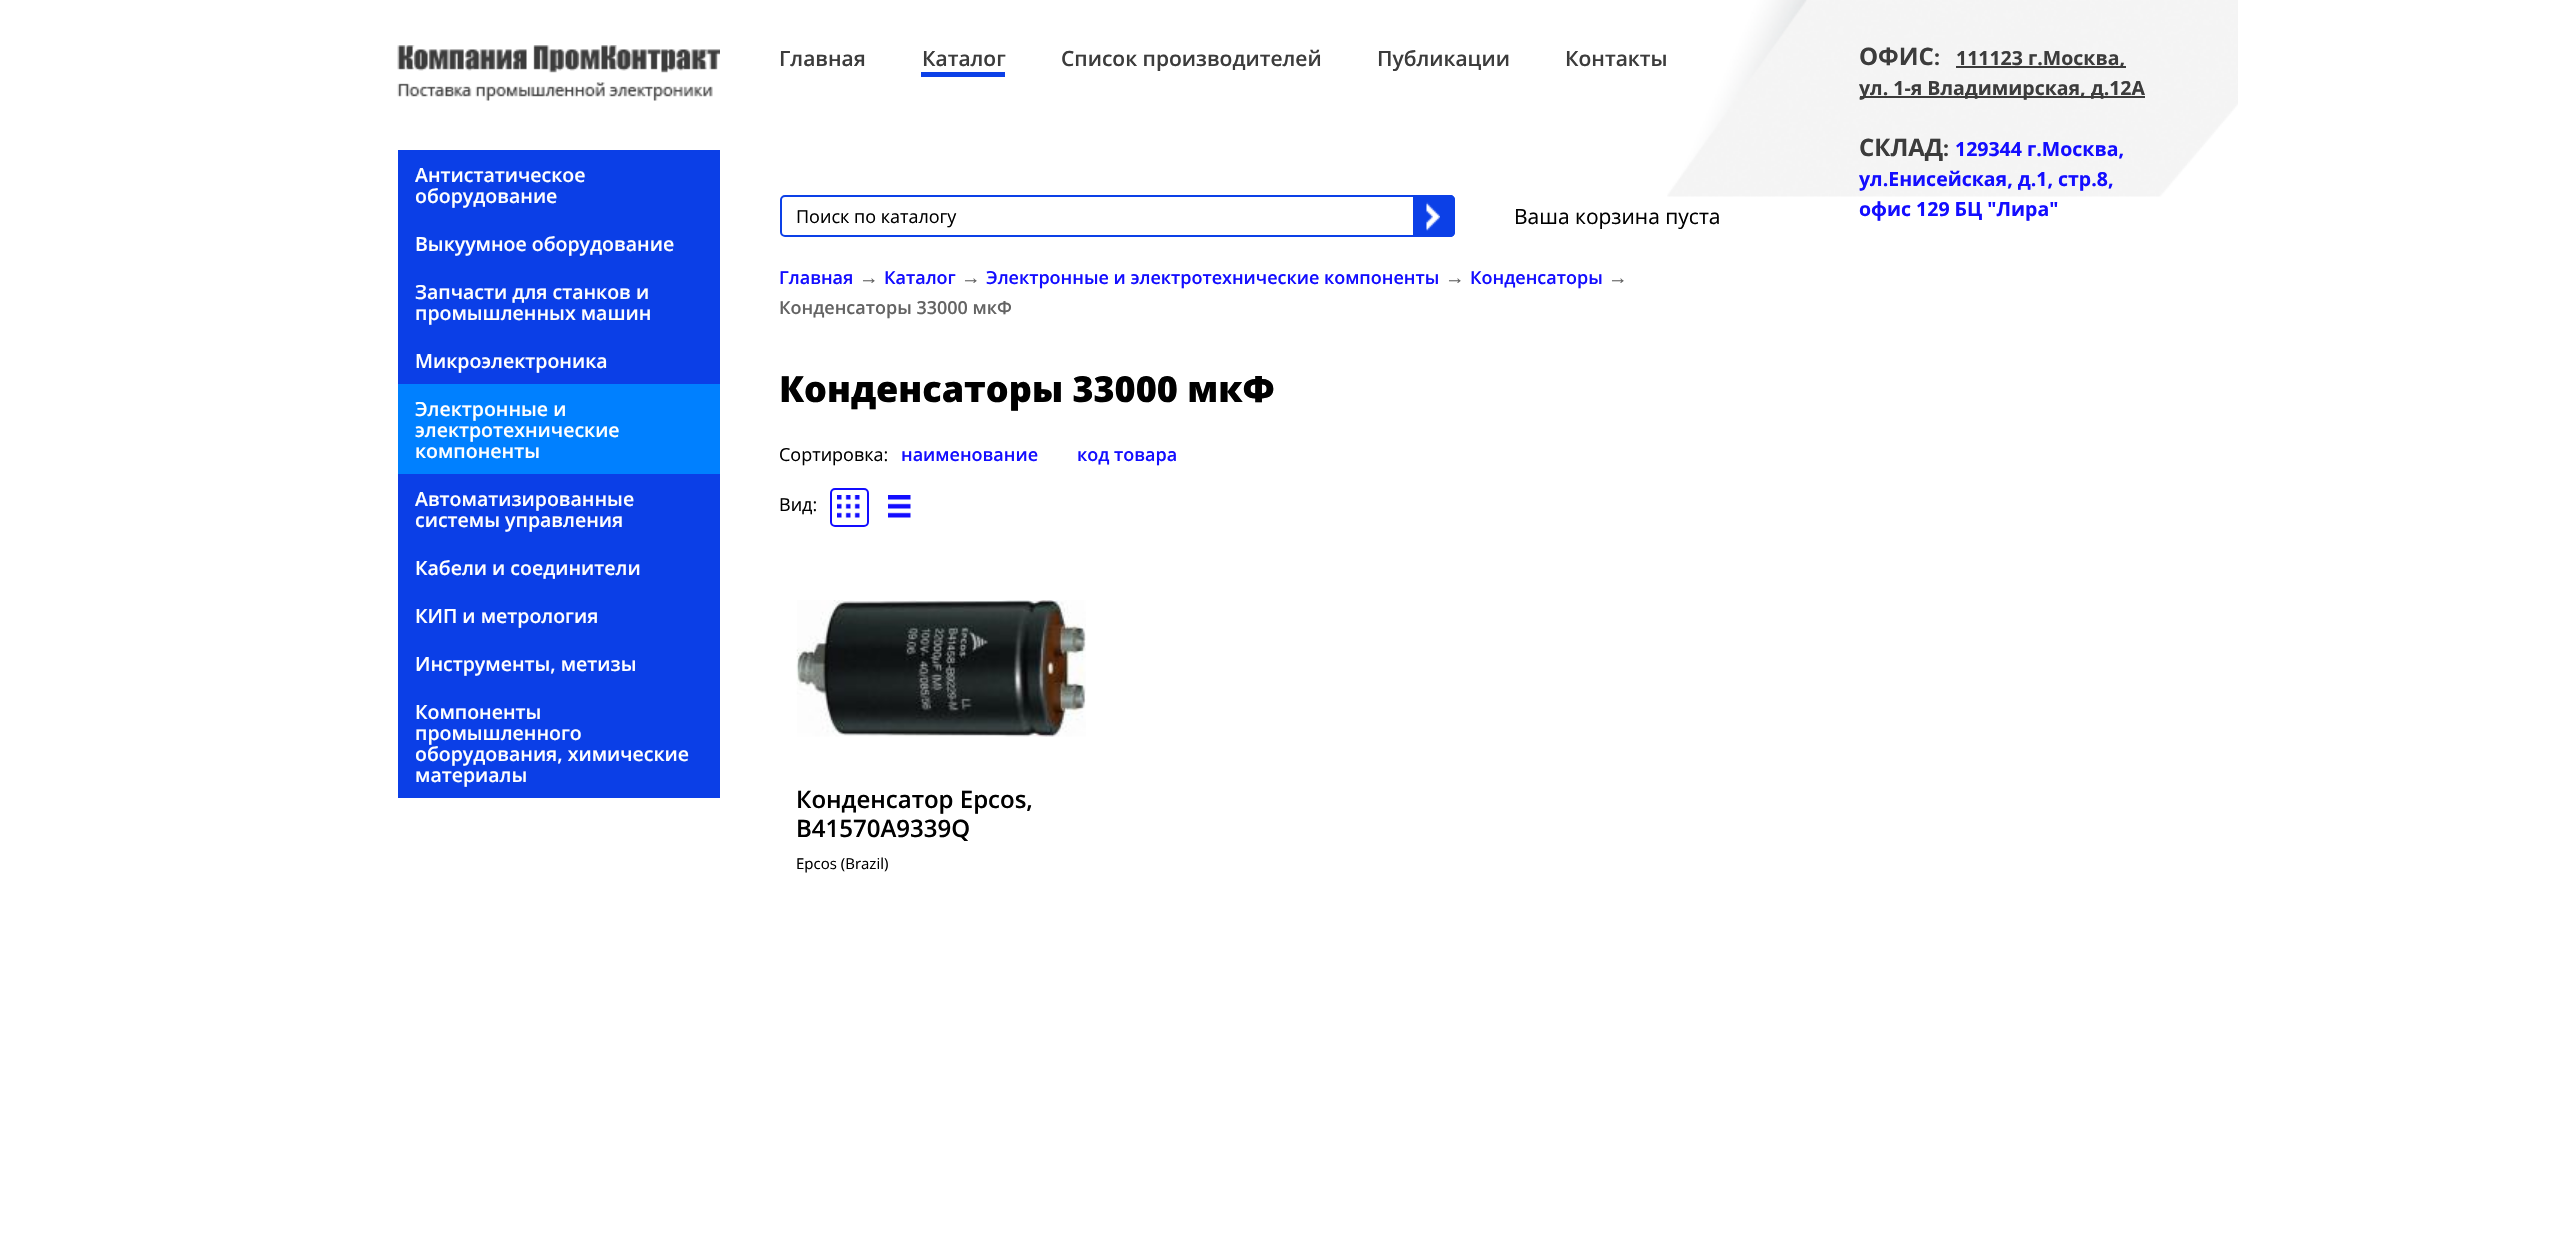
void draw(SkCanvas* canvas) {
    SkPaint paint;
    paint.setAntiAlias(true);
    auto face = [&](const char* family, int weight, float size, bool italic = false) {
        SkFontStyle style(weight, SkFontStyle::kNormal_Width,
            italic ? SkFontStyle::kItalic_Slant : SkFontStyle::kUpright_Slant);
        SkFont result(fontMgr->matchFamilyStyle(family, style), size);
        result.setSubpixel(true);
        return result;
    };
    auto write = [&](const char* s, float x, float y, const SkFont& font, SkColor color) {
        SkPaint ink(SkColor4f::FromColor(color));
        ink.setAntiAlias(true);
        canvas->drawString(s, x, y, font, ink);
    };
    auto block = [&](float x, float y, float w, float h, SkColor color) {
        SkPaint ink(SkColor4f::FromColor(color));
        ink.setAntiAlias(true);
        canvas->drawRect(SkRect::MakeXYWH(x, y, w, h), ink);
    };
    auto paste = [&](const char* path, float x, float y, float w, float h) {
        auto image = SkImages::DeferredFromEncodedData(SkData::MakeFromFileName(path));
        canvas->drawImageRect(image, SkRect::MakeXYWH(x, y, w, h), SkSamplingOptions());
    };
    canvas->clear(SK_ColorWHITE);
    paste("pic1.png", 1667, 0, 571, 197);
    paste("pic2.png", 397, 45, 323, 56);
    auto kFont1 = face("Open Sans", 600, 21);
    write("Главная", 779, 66, kFont1, SkColorSetRGB(60, 60, 60));
    block(921, 72, 84, 5, SkColorSetRGB(12, 64, 231));
    write("Каталог", 922, 66, kFont1, SkColorSetRGB(60, 60, 60));
    write("Список производителей", 1061, 66, kFont1, SkColorSetRGB(60, 60, 60));
    write("Публикации", 1377, 66, kFont1, SkColorSetRGB(60, 60, 60));
    write("Контакты", 1565, 66, kFont1, SkColorSetRGB(60, 60, 60));
    auto kFont2 = face("Open Sans", 700, 24);
    write("ОФИС", 1859, 65, kFont2, SkColorSetRGB(60, 60, 60));
    auto kFont3 = face("Open Sans", 700, 21);
    write(":", 1934, 65, kFont3, SkColorSetRGB(60, 60, 60));
    block(1956, 66, 170, 2, SkColorSetRGB(60, 60, 60));
    auto kFont4 = face("Open Sans", 700, 19.5f);
    write("111123 г.Москва,", 1956, 65, kFont4, SkColorSetRGB(60, 60, 60));
    block(1860, 96, 285, 2, SkColorSetRGB(60, 60, 60));
    write("ул. 1-я Владимирская, д.12А", 1859, 95, kFont4, SkColorSetRGB(60, 60, 60));
    write("СКЛАД", 1859, 156, kFont2, SkColorSetRGB(60, 60, 60));
    write(":", 1943, 156, kFont3, SkColorSetRGB(60, 60, 60));
    write("129344 г.Москва,", 1955, 156, kFont4, SkColorSetRGB(19, 13, 255));
    write("ул.Енисейская, д.1, стр.8,", 1859, 186, kFont4, SkColorSetRGB(19, 13, 255));
    write("офис 129 БЦ \"Лира\"", 1859, 216, kFont4, SkColorSetRGB(19, 13, 255));
    block(398, 150, 322, 234, SkColorSetRGB(11, 63, 231));
    auto kFont5 = face("Open Sans", 600, 19.5f);
    write("Антистатическое", 415, 182, kFont5, SK_ColorWHITE);
    write("оборудование", 415, 203, kFont5, SK_ColorWHITE);
    write("Выкуумное оборудование", 415, 251, kFont5, SK_ColorWHITE);
    write("Запчасти для станков и", 415, 299, kFont5, SK_ColorWHITE);
    write("промышленных машин", 415, 320, kFont5, SK_ColorWHITE);
    write("Микроэлектроника", 415, 368, kFont5, SK_ColorWHITE);
    block(398, 384, 322, 90, SkColorSetRGB(0, 128, 255));
    write("Электронные и", 415, 416, kFont5, SK_ColorWHITE);
    write("электротехнические", 415, 437, kFont5, SK_ColorWHITE);
    write("компоненты", 415, 458, kFont5, SK_ColorWHITE);
    block(398, 474, 322, 324, SkColorSetRGB(11, 63, 231));
    write("Автоматизированные", 415, 506, kFont5, SK_ColorWHITE);
    write("системы управления", 415, 527, kFont5, SK_ColorWHITE);
    write("Кабели и соединители", 415, 575, kFont5, SK_ColorWHITE);
    write("КИП и метрология", 415, 623, kFont5, SK_ColorWHITE);
    write("Инструменты, метизы", 415, 671, kFont5, SK_ColorWHITE);
    write("Компоненты", 415, 719, kFont5, SK_ColorWHITE);
    write("промышленного", 415, 740, kFont5, SK_ColorWHITE);
    write("оборудования, химические", 415, 761, kFont5, SK_ColorWHITE);
    write("материалы", 415, 782, kFont5, SK_ColorWHITE);
    paint.setStyle(SkPaint::kStroke_Style);
    paint.setStrokeWidth(2);
    paint.setColor(SkColorSetRGB(12, 64, 231));
    canvas->drawRoundRect(SkRect::MakeXYWH(781, 196, 673, 40), 4, 4, paint);
    auto kFont6 = face("Open Sans", 400, 18);
    write("Поиск по каталогу", 796, 223, kFont6, SK_ColorBLACK);
    paint.setStyle(SkPaint::kFill_Style);
    canvas->drawPath(SkPathBuilder().moveTo(1413, 195).lineTo(1450, 195).cubicTo(1453, 195, 1455, 197, 1455, 200).lineTo(1455, 232).cubicTo(1455, 235, 1453, 237, 1450, 237).lineTo(1413, 237).close().detach(), paint);
    paste("pic3.png", 1426, 202, 14, 29);
    auto kFont7 = face("Open Sans", 400, 21);
    write("Ваша корзина пуста", 1514, 224, kFont7, SK_ColorBLACK);
    auto kFont8 = face("Open Sans", 600, 18);
    write("Главная", 779, 284, kFont8, SkColorSetRGB(19, 13, 255));
    auto kFont9 = face("Liberation Sans", 700, 19.5f);
    write("→", 859, 284, kFont9, SkColorSetRGB(99, 99, 99));
    write("Каталог", 884, 284, kFont8, SkColorSetRGB(19, 13, 255));
    write("→", 961, 284, kFont9, SkColorSetRGB(99, 99, 99));
    write("Электронные и электротехнические компоненты", 986, 284, kFont8, SkColorSetRGB(19, 13, 255));
    write("→", 1445, 284, kFont9, SkColorSetRGB(99, 99, 99));
    write("Конденсаторы", 1470, 284, kFont8, SkColorSetRGB(19, 13, 255));
    write("→", 1608, 284, kFont9, SkColorSetRGB(99, 99, 99));
    write("Конденсаторы 33000 мкФ", 779, 314, kFont8, SkColorSetRGB(99, 99, 99));
    auto kFont10 = face("Open Sans", 800, 36);
    write("Конденсаторы 33000 мкФ", 779, 402, kFont10, SK_ColorBLACK);
    write("Сортировка:", 779, 461, kFont6, SK_ColorBLACK);
    write("наименование", 901, 461, kFont8, SkColorSetRGB(19, 13, 255));
    write("код товара", 1077, 461, kFont8, SkColorSetRGB(19, 13, 255));
    write("Вид:", 779, 511, kFont6, SK_ColorBLACK);
    paste("pic4.png", 837, 495, 23, 23);
    paint.setStyle(SkPaint::kStroke_Style);
    paint.setColor(SkColorSetRGB(19, 13, 255));
    canvas->drawRoundRect(SkRect::MakeXYWH(831, 489, 37, 37), 4, 4, paint);
    paste("pic5.png", 888, 495, 23, 23);
    paste("pic6.png", 796, 600, 290, 137);
    auto kFont11 = face("Open Sans", 600, 24);
    write("Конденсатор Epcos,", 796, 808, kFont11, SK_ColorBLACK);
    write("B41570A9339Q", 796, 837, kFont11, SK_ColorBLACK);
    auto kFont12 = face("Open Sans", 400, 15);
    write("Epcos (Brazil)", 796, 869, kFont12, SK_ColorBLACK);
}
